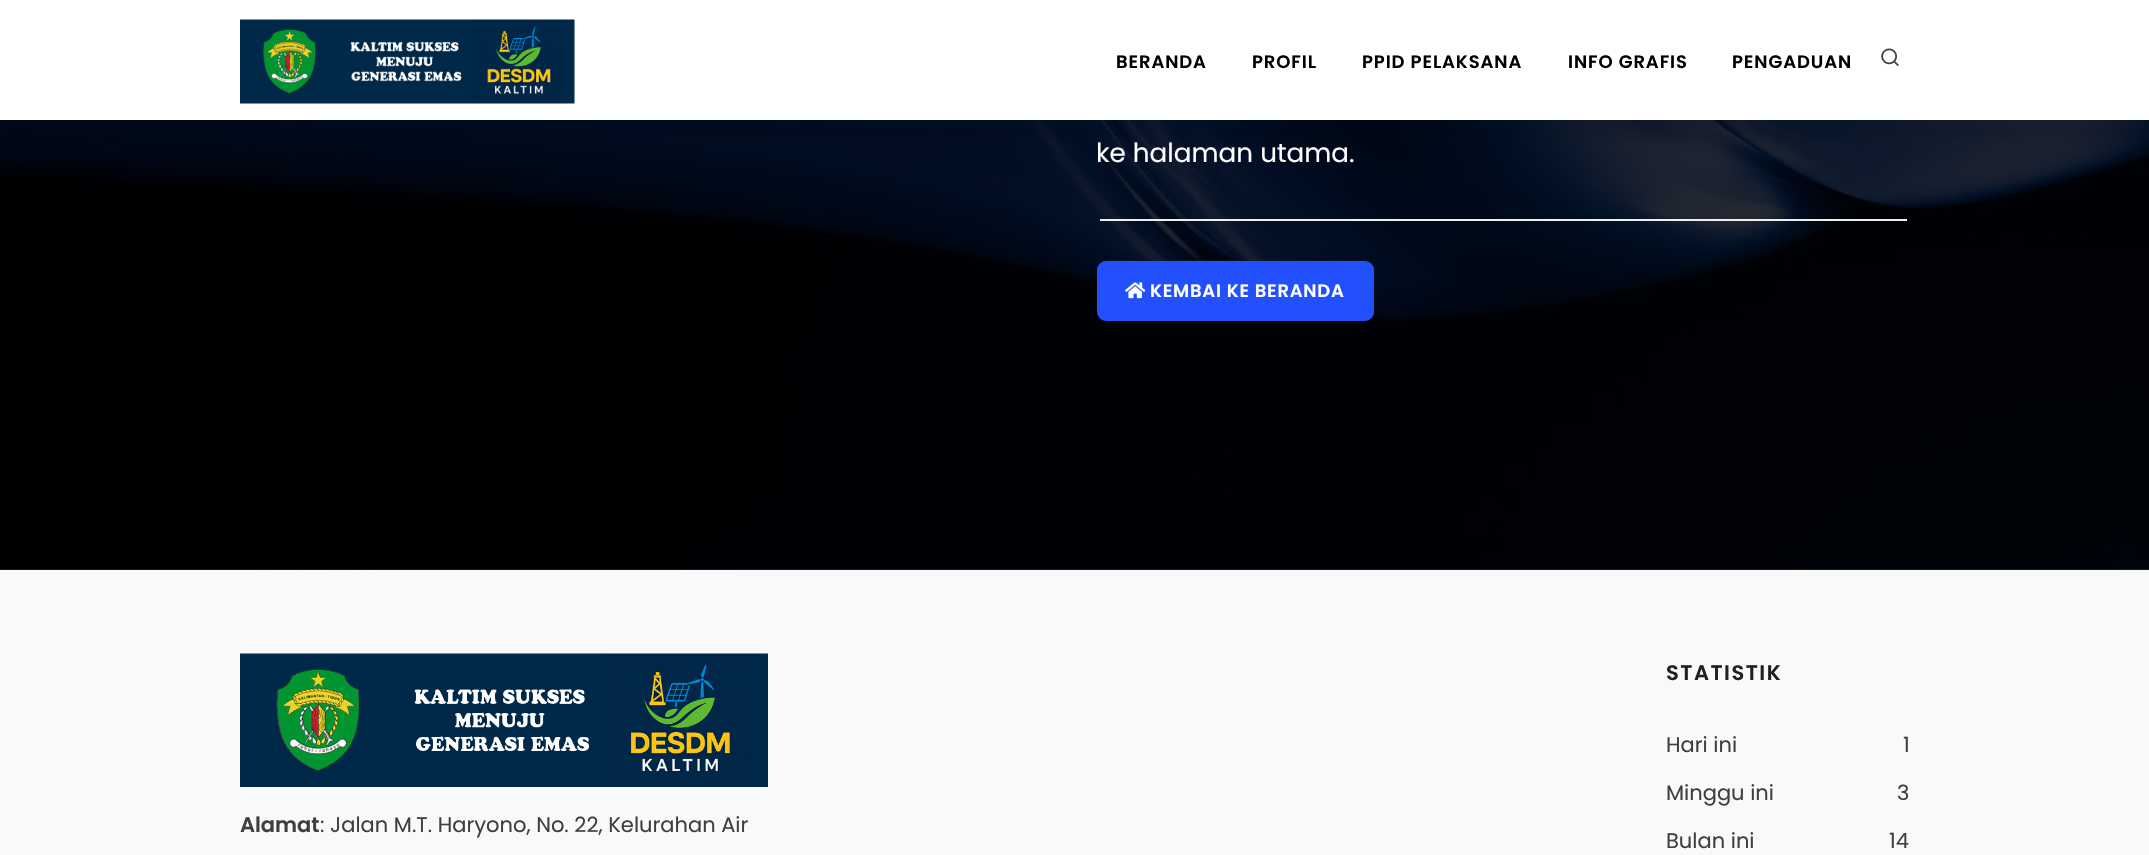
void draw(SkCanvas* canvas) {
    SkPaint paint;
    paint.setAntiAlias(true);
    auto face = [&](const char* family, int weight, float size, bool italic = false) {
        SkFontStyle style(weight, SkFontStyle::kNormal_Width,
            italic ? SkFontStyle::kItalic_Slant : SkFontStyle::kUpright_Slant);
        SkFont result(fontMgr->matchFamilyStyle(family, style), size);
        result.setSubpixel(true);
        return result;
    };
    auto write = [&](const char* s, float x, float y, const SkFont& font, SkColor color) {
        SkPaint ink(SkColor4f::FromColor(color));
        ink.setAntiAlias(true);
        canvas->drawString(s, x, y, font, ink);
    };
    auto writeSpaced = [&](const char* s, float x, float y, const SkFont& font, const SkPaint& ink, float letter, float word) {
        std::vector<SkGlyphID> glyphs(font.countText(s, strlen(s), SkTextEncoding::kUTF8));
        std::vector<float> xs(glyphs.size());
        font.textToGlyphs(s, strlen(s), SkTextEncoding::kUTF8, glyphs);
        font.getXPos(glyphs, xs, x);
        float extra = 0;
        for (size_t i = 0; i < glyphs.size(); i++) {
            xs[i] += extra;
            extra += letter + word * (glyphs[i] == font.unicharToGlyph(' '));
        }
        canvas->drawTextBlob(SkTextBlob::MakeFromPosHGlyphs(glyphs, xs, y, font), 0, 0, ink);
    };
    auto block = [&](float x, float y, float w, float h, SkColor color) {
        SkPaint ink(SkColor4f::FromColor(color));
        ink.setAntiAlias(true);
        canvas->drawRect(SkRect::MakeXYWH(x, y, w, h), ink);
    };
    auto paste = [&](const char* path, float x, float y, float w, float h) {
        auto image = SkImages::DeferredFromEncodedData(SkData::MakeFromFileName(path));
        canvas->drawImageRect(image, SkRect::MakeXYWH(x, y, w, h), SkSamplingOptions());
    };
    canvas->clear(SkColorSetRGB(249, 249, 250));
    block(0, 569, 2149, 1, SkColorSetRGB(50, 50, 50));
    paste("pic3.png", 0, 120, 2149, 450);
    paint.setColor(SkColorSetARGB(15, 0, 0, 0));
    paint.setMaskFilter(SkMaskFilter::MakeBlur(kNormal_SkBlurStyle, 4.5f));
    canvas->drawRect(SkRect::MakeXYWH(0, 18, 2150, 120), paint);
    paint.setMaskFilter(nullptr);
    block(0, 0, 2149, 120, SK_ColorWHITE);
    paste("pic1.png", 240, 19, 335, 85);
    auto kFont1 = face("Poppins", 600, 18);
    paint.setColor(SK_ColorBLACK);
    writeSpaced("BERANDA", 1116, 68, kFont1, paint, 0.9f, 0);
    writeSpaced("PROFIL", 1252, 68, kFont1, paint, 0.9f, 0);
    writeSpaced("PPID PELAKSANA", 1362, 68, kFont1, paint, 0.9f, 0);
    writeSpaced("INFO GRAFIS", 1568, 68, kFont1, paint, 0.9f, 0);
    writeSpaced("PENGADUAN", 1732, 68, kFont1, paint, 0.9f, 0);
    paste("pic2.png", 1881, 48, 18, 18);
    auto kFont2 = face("Poppins", 400, 26.25f);
    write("ke halaman utama.", 1096, 162, kFont2, SK_ColorWHITE);
    block(1100, 219, 807, 2, SkColorSetRGB(238, 238, 238));
    paint.setColor(SkColorSetRGB(34, 80, 252));
    canvas->drawRoundRect(SkRect::MakeXYWH(1098, 262, 275, 58), 8, 8, paint);
    paint.setStyle(SkPaint::kStroke_Style);
    paint.setStrokeWidth(2);
    canvas->drawRoundRect(SkRect::MakeXYWH(1098, 262, 275, 58), 8, 8, paint);
    paste("pic4.png", 1125, 282, 21, 17);
    paint.setStyle(SkPaint::kFill_Style);
    paint.setColor(SK_ColorWHITE);
    writeSpaced("KEMBAI KE BERANDA", 1150, 297, kFont1, paint, 0.75f, 0);
    paste("pic5.png", 240, 653, 528, 134);
    auto kFont3 = face("Poppins", 600, 21);
    write("Alamat", 240, 832, kFont3, SkColorSetRGB(60, 64, 67));
    auto kFont4 = face("Poppins", 400, 21);
    write(": Jalan M.T. Haryono, No. 22, Kelurahan Air", 320, 832, kFont4, SkColorSetRGB(60, 64, 67));
    paint.setColor(SkColorSetRGB(30, 32, 34));
    writeSpaced("STATISTIK", 1666, 680, kFont3, paint, 1.5f, 0);
    write("Hari ini", 1666, 752, kFont4, SkColorSetRGB(60, 64, 67));
    write("1", 1903, 752, kFont4, SkColorSetRGB(60, 64, 67));
    write("Minggu ini", 1666, 800, kFont4, SkColorSetRGB(60, 64, 67));
    write("3", 1897, 800, kFont4, SkColorSetRGB(60, 64, 67));
    write("Bulan ini", 1666, 848, kFont4, SkColorSetRGB(60, 64, 67));
    write("14", 1889, 848, kFont4, SkColorSetRGB(60, 64, 67));
}
